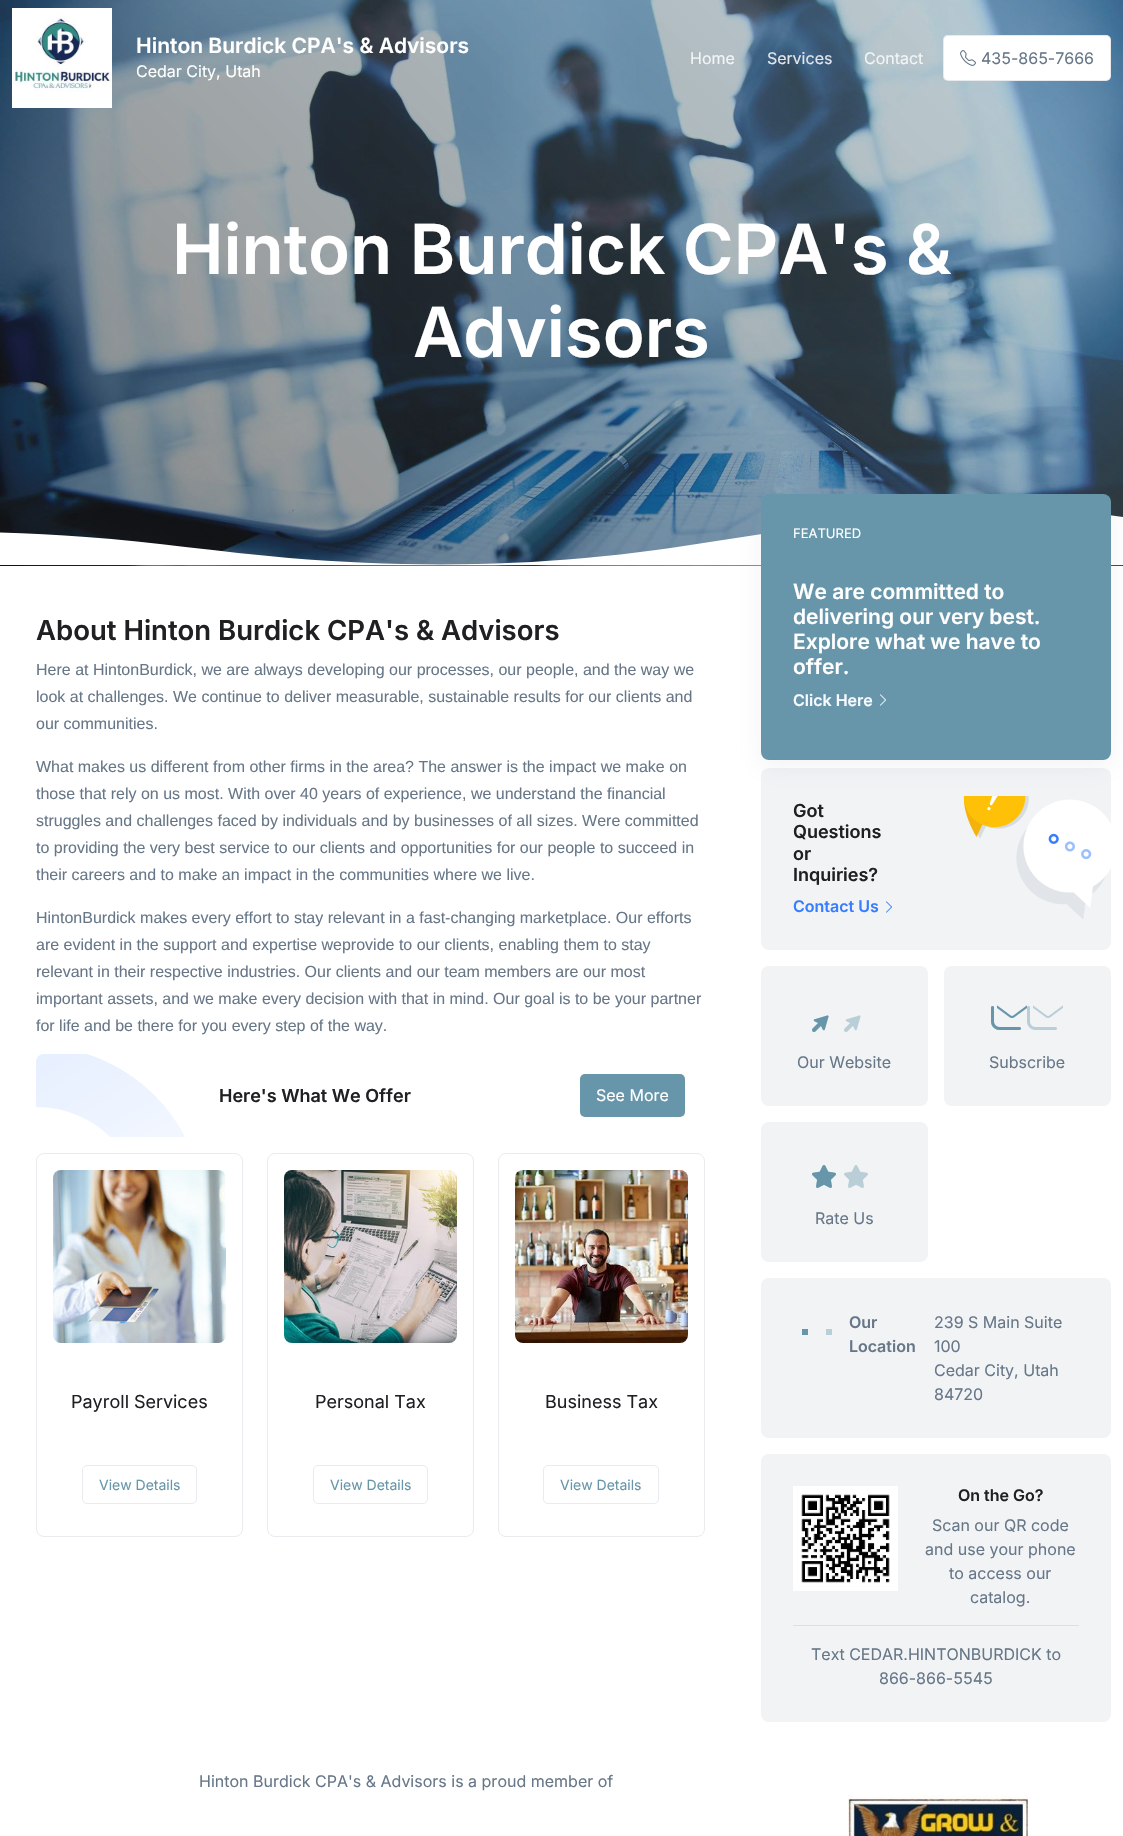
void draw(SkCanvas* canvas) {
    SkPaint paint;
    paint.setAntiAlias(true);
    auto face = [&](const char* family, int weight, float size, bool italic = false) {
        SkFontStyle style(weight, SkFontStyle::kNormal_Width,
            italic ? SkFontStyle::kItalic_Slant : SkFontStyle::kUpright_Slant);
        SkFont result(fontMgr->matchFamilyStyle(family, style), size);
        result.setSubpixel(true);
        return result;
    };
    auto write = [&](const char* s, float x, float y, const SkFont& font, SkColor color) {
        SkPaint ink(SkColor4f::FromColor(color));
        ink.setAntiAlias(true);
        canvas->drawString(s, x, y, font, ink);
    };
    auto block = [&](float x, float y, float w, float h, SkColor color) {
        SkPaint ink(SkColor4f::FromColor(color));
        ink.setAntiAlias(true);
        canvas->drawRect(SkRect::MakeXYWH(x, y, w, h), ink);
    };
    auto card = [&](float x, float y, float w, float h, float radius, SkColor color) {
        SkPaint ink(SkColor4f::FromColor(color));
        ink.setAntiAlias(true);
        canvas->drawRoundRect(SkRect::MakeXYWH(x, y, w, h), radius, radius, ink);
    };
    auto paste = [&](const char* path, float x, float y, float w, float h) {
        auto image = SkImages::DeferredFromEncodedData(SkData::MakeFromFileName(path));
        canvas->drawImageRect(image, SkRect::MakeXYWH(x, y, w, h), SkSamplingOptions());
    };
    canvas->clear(SK_ColorWHITE);
    paste("pic3.png", 0, 0, 1123, 566);
    paste("pic1.png", 12, 8, 100, 100);
    auto kFont1 = face("Inter", 600, 21);
    write("Hinton Burdick CPA's & Advisors", 136, 53, kFont1, SK_ColorWHITE);
    auto kFont2 = face("Inter", 400, 16);
    write("Cedar City, Utah", 136, 77, kFont2, SK_ColorWHITE);
    write("Home", 690, 64, kFont2, SkColorSetRGB(243, 245, 246));
    write("Services", 767, 64, kFont2, SkColorSetRGB(226, 230, 235));
    write("Contact", 864, 64, kFont2, SkColorSetRGB(243, 245, 246));
    card(943, 35, 168, 46, 5, SK_ColorWHITE);
    paint.setStyle(SkPaint::kStroke_Style);
    paint.setStrokeWidth(1);
    paint.setColor(SkColorSetARGB(26, 33, 50, 91));
    canvas->drawRoundRect(SkRect::MakeXYWH(943.5f, 35.5f, 167, 45), 4.5f, 4.5f, paint);
    paste("pic2.png", 960, 50, 16, 16);
    write("435-865-7666", 981, 64, kFont2, SkColorSetRGB(103, 119, 136));
    auto kFont3 = face("Inter", 600, 69);
    write("Hinton Burdick CPA's &", 172, 274, kFont3, SK_ColorWHITE);
    write("Advisors", 413, 357, kFont3, SK_ColorWHITE);
    paint.setStyle(SkPaint::kFill_Style);
    paint.setColor(SK_ColorWHITE);
    canvas->drawPath(SkPathBuilder().moveTo(86, 537).cubicTo(154, 542, 221, 552, 289, 558).cubicTo(386, 566, 488, 567, 585, 558).cubicTo(679, 550, 777, 529, 870, 519).cubicTo(953, 510, 1043, 506, 1123, 517).lineTo(1123, 565).lineTo(-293, 565).lineTo(-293, 552).cubicTo(-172, 532, -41, 527, 86, 537).close().detach(), paint);
    auto kFont4 = face("Inter", 600, 27.5f);
    write("About Hinton Burdick CPA's & Advisors", 36, 640, kFont4, SkColorSetRGB(30, 32, 34));
    auto kFont5 = face("Liberation Sans", 400, 16);
    write("Here at HintonBurdick, we are always developing our processes, our people, and the way we", 36, 675, kFont5, SkColorSetRGB(103, 119, 136));
    write("look at challenges. We continue to deliver measurable, sustainable results for our clients and", 36, 702, kFont5, SkColorSetRGB(103, 119, 136));
    write("our communities.", 36, 729, kFont5, SkColorSetRGB(103, 119, 136));
    write("What makes us different from other firms in the area? The answer is the impact we make on", 36, 772, kFont5, SkColorSetRGB(103, 119, 136));
    write("those that rely on us most. With over 40 years of experience, we understand the financial", 36, 799, kFont5, SkColorSetRGB(103, 119, 136));
    write("struggles and challenges faced by individuals and by businesses of all sizes. Were committed", 36, 826, kFont5, SkColorSetRGB(103, 119, 136));
    write("to providing the very best service to our clients and opportunities for our people to succeed in", 36, 853, kFont5, SkColorSetRGB(103, 119, 136));
    write("their careers and to make an impact in the communities where we live.", 36, 880, kFont5, SkColorSetRGB(103, 119, 136));
    write("HintonBurdick makes every effort to stay relevant in a fast-changing marketplace. Our efforts", 36, 923, kFont5, SkColorSetRGB(103, 119, 136));
    write("are evident in the support and expertise weprovide to our clients, enabling them to stay", 36, 950, kFont5, SkColorSetRGB(103, 119, 136));
    write("relevant in their respective industries. Our clients and our team members are our most", 36, 977, kFont5, SkColorSetRGB(103, 119, 136));
    write("important assets, and we make every decision with that in mind. Our goal is to be your partner", 36, 1004, kFont5, SkColorSetRGB(103, 119, 136));
    write("for life and be there for you every step of the way.", 36, 1031, kFont5, SkColorSetRGB(103, 119, 136));
    canvas->save();
    canvas->clipPath(SkPathBuilder().moveTo(44, 1054).lineTo(697, 1054).cubicTo(701.5f, 1054, 705, 1057.5f, 705, 1062).lineTo(705, 1129).cubicTo(705, 1133.5f, 701.5f, 1137, 697, 1137).lineTo(44, 1137).cubicTo(39.5f, 1137, 36, 1133.5f, 36, 1129).lineTo(36, 1062).cubicTo(36, 1057.5f, 39.5f, 1054, 44, 1054).close().detach(), true);
    paint.setStyle(SkPaint::kStroke_Style);
    paint.setStrokeWidth(60.8f);
    {
        const SkColor colors[] = {SK_ColorWHITE, SkColorSetRGB(230, 239, 255)};
        const float stops[] = {0, 1};
        const SkPoint ends[] = {{156, 1337}, {-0.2f, 1067}};
        paint.setShader(SkGradientShader::MakeLinear(ends, colors, stops, 2, SkTileMode::kClamp));
        paint.setAlpha(255);
    }
    canvas->drawPath(SkPathBuilder().moveTo(36, 1076.5f).cubicTo(111.5f, 1076.5f, 173, 1137.5f, 173, 1213).cubicTo(173, 1288.5f, 111.5f, 1350, 36, 1350).detach(), paint);
    canvas->restore();
    auto kFont6 = face("Inter", 600, 18);
    write("Here's What We Offer", 219, 1102, kFont6, SkColorSetRGB(30, 32, 34));
    card(580, 1074, 105, 43, 5, SkColorSetRGB(103, 150, 170));
    write("See More", 596, 1101, kFont2, SK_ColorWHITE);
    paint.setStrokeWidth(1);
    paint.setShader(nullptr);
    paint.setColor(SkColorSetRGB(233, 235, 239));
    canvas->drawRoundRect(SkRect::MakeXYWH(36.5f, 1153.5f, 206, 383), 7.5f, 7.5f, paint);
    paste("pic4.png", 53, 1170, 173, 173);
    auto kFont7 = face("Inter", 400, 18);
    write("Payroll Services", 71, 1408, kFont7, SkColorSetRGB(30, 32, 34));
    canvas->drawRoundRect(SkRect::MakeXYWH(82.5f, 1465.5f, 114, 38), 4.5f, 4.5f, paint);
    auto kFont8 = face("Inter", 400, 14);
    write("View Details", 99, 1490, kFont8, SkColorSetRGB(103, 150, 170));
    canvas->drawRoundRect(SkRect::MakeXYWH(267.5f, 1153.5f, 206, 383), 7.5f, 7.5f, paint);
    paste("pic5.png", 284, 1170, 173, 173);
    write("Personal Tax", 315, 1408, kFont7, SkColorSetRGB(30, 32, 34));
    canvas->drawRoundRect(SkRect::MakeXYWH(313.5f, 1465.5f, 114, 38), 4.5f, 4.5f, paint);
    write("View Details", 330, 1490, kFont8, SkColorSetRGB(103, 150, 170));
    canvas->drawRoundRect(SkRect::MakeXYWH(498.5f, 1153.5f, 206, 383), 7.5f, 7.5f, paint);
    paste("pic6.png", 515, 1170, 173, 173);
    write("Business Tax", 545, 1408, kFont7, SkColorSetRGB(30, 32, 34));
    canvas->drawRoundRect(SkRect::MakeXYWH(543.5f, 1465.5f, 115, 38), 4.5f, 4.5f, paint);
    write("View Details", 560, 1490, kFont8, SkColorSetRGB(103, 150, 170));
    paint.setStyle(SkPaint::kFill_Style);
    paint.setColor(SkColorSetARGB(31, 140, 152, 164));
    paint.setMaskFilter(SkMaskFilter::MakeBlur(kNormal_SkBlurStyle, 12));
    canvas->drawRoundRect(SkRect::MakeXYWH(761, 500, 350, 266), 8, 8, paint);
    paint.setMaskFilter(nullptr);
    card(761, 494, 350, 266, 8, SkColorSetRGB(103, 150, 170));
    auto kFont9 = face("Inter", 400, 13);
    write("FEATURED", 793, 538, kFont9, SK_ColorWHITE);
    write("We are committed to", 793, 599, kFont1, SK_ColorWHITE);
    write("delivering our very best.", 793, 624, kFont1, SK_ColorWHITE);
    write("Explore what we have to", 793, 649, kFont1, SK_ColorWHITE);
    write("offer.", 793, 674, kFont1, SK_ColorWHITE);
    auto kFont10 = face("Inter", 600, 16);
    write("Click Here", 793, 706, kFont10, SkColorSetRGB(247, 250, 255));
    paste("pic7.png", 880, 694, 6, 12);
    card(761, 768, 350, 182, 8, SkColorSetARGB(26, 113, 134, 157));
    write("Got", 793, 817, kFont6, SkColorSetRGB(30, 32, 34));
    write("Questions", 793, 838, kFont6, SkColorSetRGB(30, 32, 34));
    write("or", 793, 860, kFont6, SkColorSetRGB(30, 32, 34));
    write("Inquiries?", 793, 881, kFont6, SkColorSetRGB(30, 32, 34));
    write("Contact Us", 793, 912, kFont10, SkColorSetRGB(55, 125, 255));
    paste("pic8.png", 886, 901, 6, 12);
    paste("pic9.png", 963, 796, 148, 123);
    card(761, 966, 167, 140, 8, SkColorSetRGB(241, 243, 245));
    paste("pic10.png", 812, 1015, 17, 17);
    paste("pic11.png", 812, 1015, 49, 17);
    write("Our Website", 797, 1068, kFont2, SkColorSetRGB(103, 119, 136));
    card(944, 966, 167, 140, 8, SkColorSetRGB(241, 243, 245));
    paste("pic12.png", 991, 1005, 36, 25);
    paste("pic13.png", 991, 1005, 72, 25);
    write("Subscribe", 989, 1068, kFont2, SkColorSetRGB(103, 119, 136));
    card(761, 1122, 167, 140, 8, SkColorSetRGB(241, 243, 245));
    paste("pic14.png", 812, 1165, 24, 23);
    paste("pic15.png", 812, 1165, 56, 23);
    write("Rate Us", 815, 1224, kFont2, SkColorSetRGB(103, 119, 136));
    card(761, 1278, 350, 160, 8, SkColorSetRGB(241, 243, 245));
    block(802, 1329, 6, 6, SkColorSetRGB(103, 150, 170));
    block(826, 1329, 6, 6, SkColorSetRGB(186, 206, 215));
    write("Our", 849, 1328, kFont10, SkColorSetRGB(103, 119, 136));
    write("Location", 849, 1352, kFont10, SkColorSetRGB(103, 119, 136));
    write("239 S Main Suite", 934, 1328, kFont2, SkColorSetRGB(103, 119, 136));
    write("100", 934, 1352, kFont2, SkColorSetRGB(103, 119, 136));
    write("Cedar City, Utah", 934, 1376, kFont2, SkColorSetRGB(103, 119, 136));
    write("84720", 934, 1400, kFont2, SkColorSetRGB(103, 119, 136));
    card(761, 1454, 350, 268, 8, SkColorSetRGB(241, 243, 245));
    paste("pic16.png", 793, 1486, 105, 105);
    write("On the Go?", 958, 1501, kFont10, SkColorSetRGB(30, 32, 34));
    write("Scan our QR code", 932, 1531, kFont2, SkColorSetRGB(103, 119, 136));
    write("and use your phone", 925, 1555, kFont2, SkColorSetRGB(103, 119, 136));
    write("to access our", 949, 1579, kFont2, SkColorSetRGB(103, 119, 136));
    write("catalog.", 970, 1603, kFont2, SkColorSetRGB(103, 119, 136));
    block(793, 1625, 286, 1, SkColorSetRGB(220, 224, 230));
    write("Text CEDAR.HINTONBURDICK to", 811, 1660, kFont2, SkColorSetRGB(103, 119, 136));
    write("866-866-5545", 879, 1684, kFont2, SkColorSetRGB(103, 119, 136));
    write("Hinton Burdick CPA's & Advisors is a proud member of", 199, 1787, kFont2, SkColorSetRGB(103, 119, 136));
    paste("pic17.png", 848, 1795, 180, 41);
}
